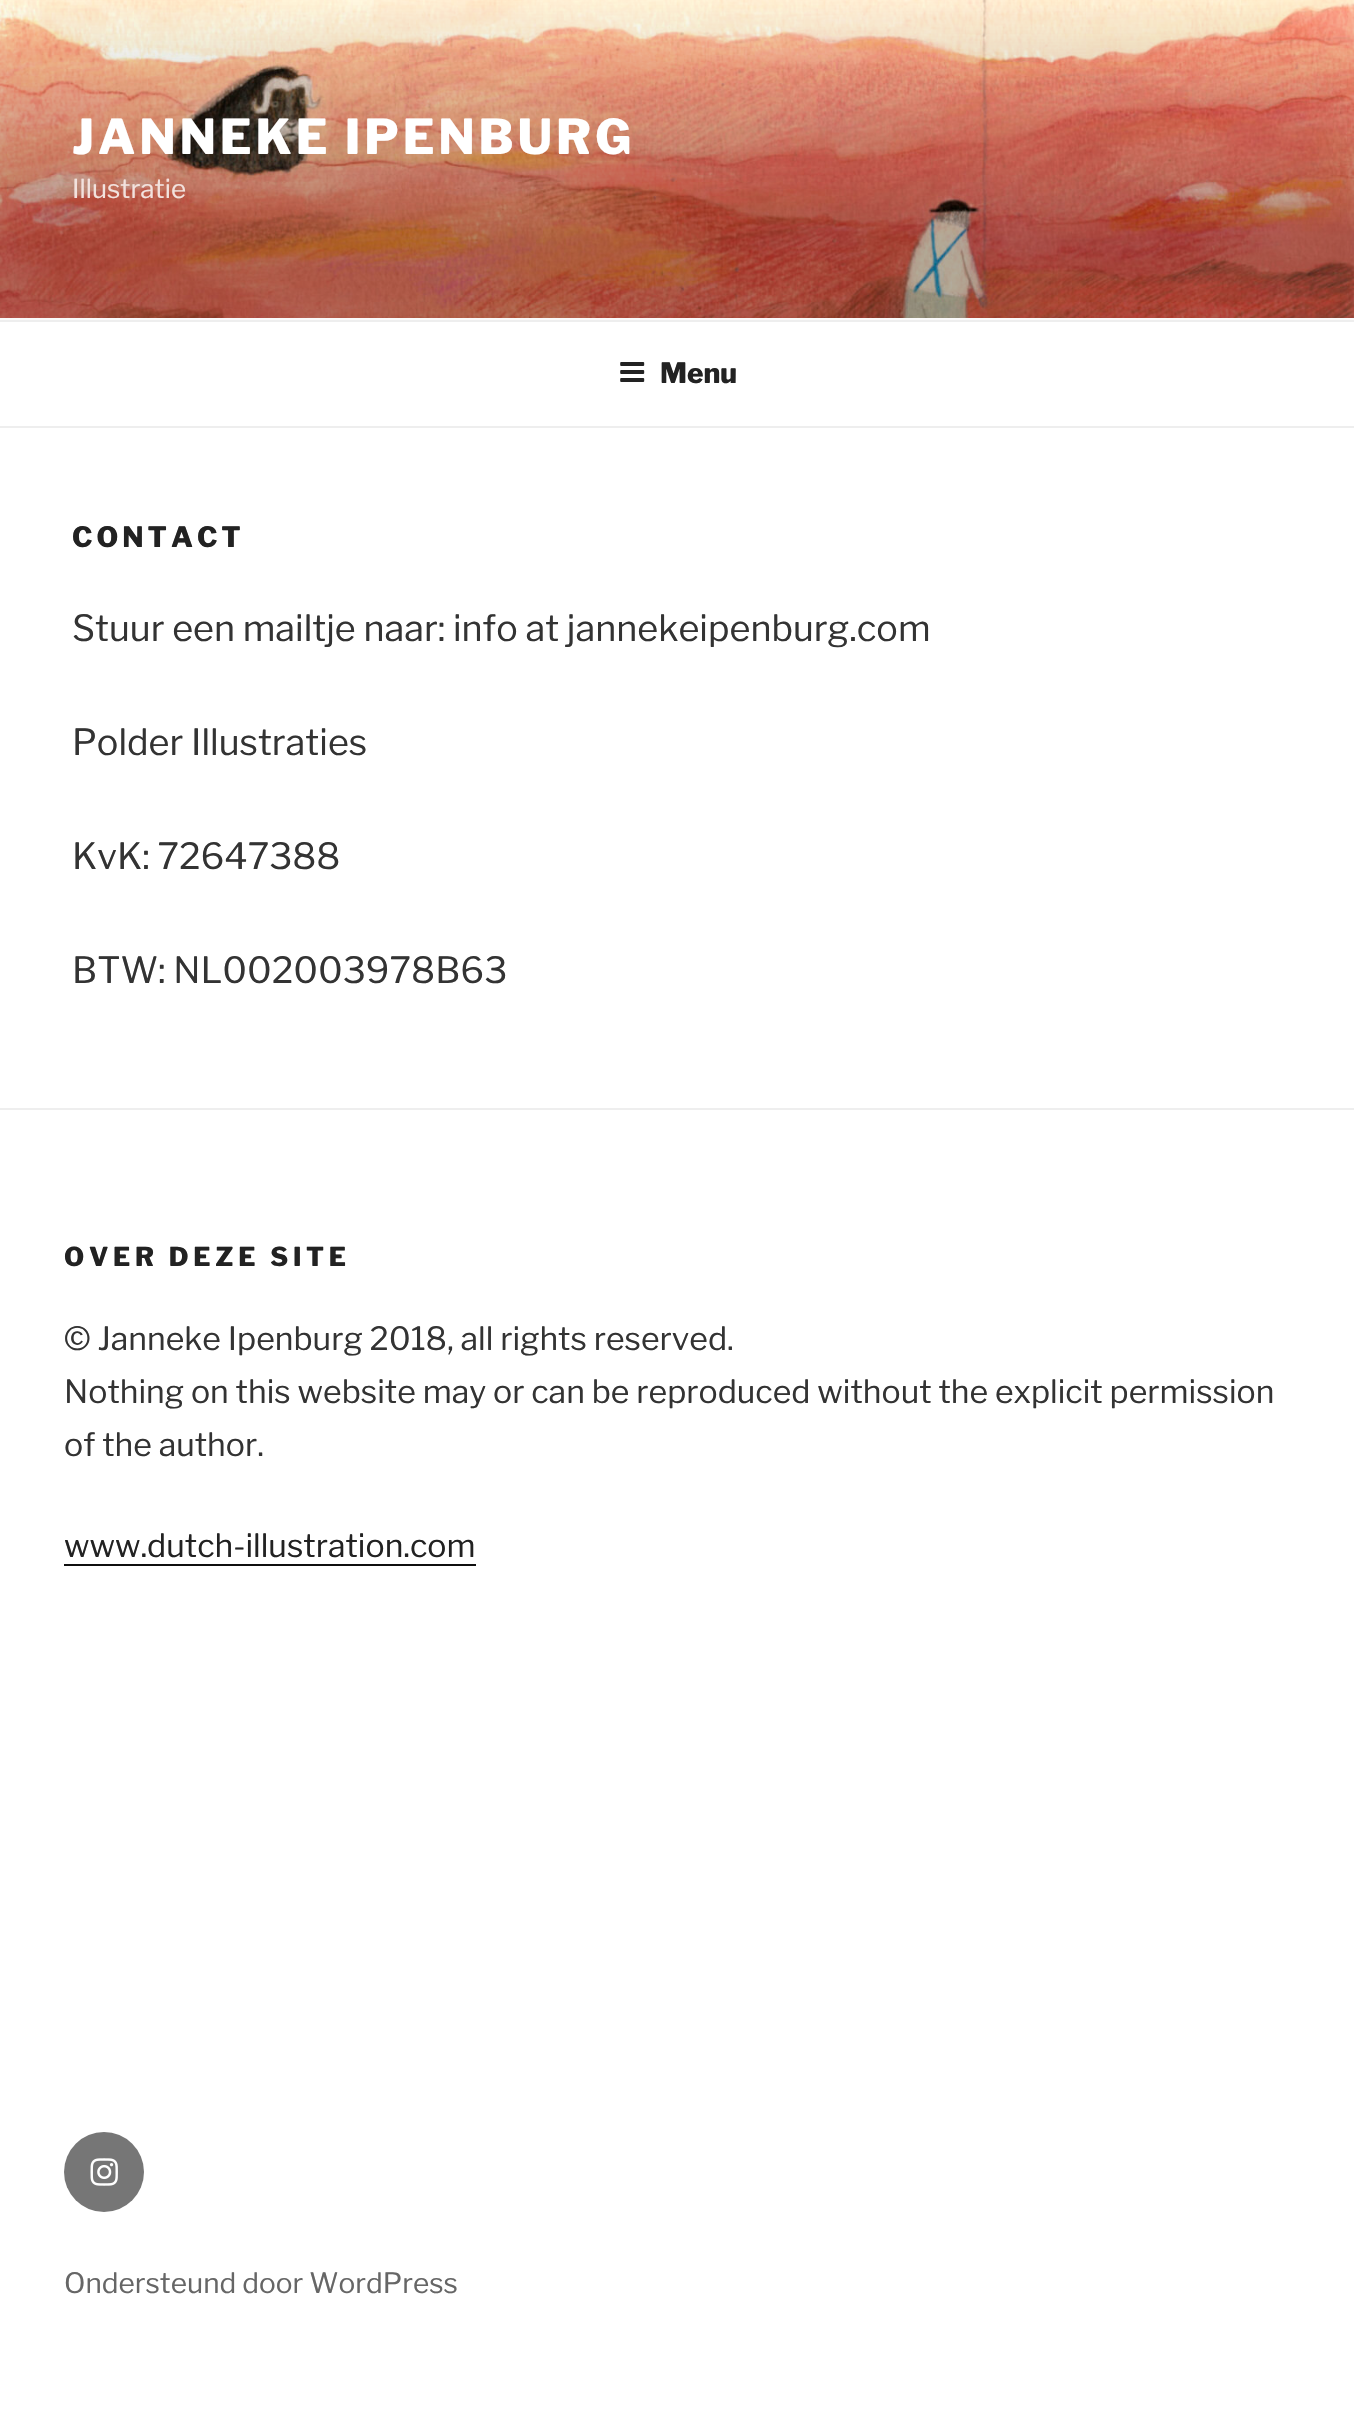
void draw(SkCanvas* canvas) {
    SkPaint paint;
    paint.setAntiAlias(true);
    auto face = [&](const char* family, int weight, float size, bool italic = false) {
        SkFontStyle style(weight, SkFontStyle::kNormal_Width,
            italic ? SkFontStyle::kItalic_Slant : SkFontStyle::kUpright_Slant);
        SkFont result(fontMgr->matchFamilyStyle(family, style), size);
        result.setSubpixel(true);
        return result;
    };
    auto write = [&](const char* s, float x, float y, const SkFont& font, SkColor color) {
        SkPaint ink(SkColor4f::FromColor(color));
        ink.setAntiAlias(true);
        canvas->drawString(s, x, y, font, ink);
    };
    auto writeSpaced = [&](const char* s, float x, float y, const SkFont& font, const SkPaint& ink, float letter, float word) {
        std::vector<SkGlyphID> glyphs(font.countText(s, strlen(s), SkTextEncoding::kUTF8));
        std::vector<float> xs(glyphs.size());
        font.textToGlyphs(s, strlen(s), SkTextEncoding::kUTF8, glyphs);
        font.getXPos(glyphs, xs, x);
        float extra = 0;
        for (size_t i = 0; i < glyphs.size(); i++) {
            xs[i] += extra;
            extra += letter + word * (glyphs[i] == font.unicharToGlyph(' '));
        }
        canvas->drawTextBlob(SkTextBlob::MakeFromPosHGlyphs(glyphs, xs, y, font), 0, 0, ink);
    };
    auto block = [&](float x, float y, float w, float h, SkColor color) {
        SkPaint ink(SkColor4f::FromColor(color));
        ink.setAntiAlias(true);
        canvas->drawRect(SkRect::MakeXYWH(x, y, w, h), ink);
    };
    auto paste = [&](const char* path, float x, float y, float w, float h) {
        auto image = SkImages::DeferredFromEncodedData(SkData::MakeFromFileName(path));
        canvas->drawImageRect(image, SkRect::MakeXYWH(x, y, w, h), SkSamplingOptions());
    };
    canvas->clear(SK_ColorWHITE);
    block(0, 318, 1354, 2, SkColorSetRGB(250, 250, 250));
    paste("pic1.png", 0, 0, 1354, 318);
    auto kFont1 = face("Libre Franklin", 100, 48);
    paint.setColor(SK_ColorWHITE);
    writeSpaced("JANNEKE IPENBURG", 72, 154, kFont1, paint, 3.8f, 0);
    auto kFont2 = face("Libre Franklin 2", 100, 26);
    write("Illustratie", 72, 198, kFont2, SkColorSetRGB(242, 226, 222));
    block(0, 320, 1354, 2, SkColorSetRGB(238, 238, 238));
    block(0, 426, 1354, 2, SkColorSetRGB(238, 238, 238));
    paste("pic2.png", 620, 362, 25, 20);
    auto kFont3 = face("Libre Franklin", 100, 28);
    write("Menu", 660, 383, kFont3, SkColorSetRGB(34, 34, 34));
    paint.setColor(SkColorSetRGB(34, 34, 34));
    writeSpaced("CONTACT", 72, 547, kFont3, paint, 4, 0);
    auto kFont4 = face("Libre Franklin 2", 100, 36);
    write("Stuur een mailtje naar: info at jannekeipenburg.com", 72, 641, kFont4, SkColorSetRGB(51, 51, 51));
    write("Polder Illustraties", 72, 755, kFont4, SkColorSetRGB(51, 51, 51));
    write("KvK: 72647388", 72, 869, kFont4, SkColorSetRGB(51, 51, 51));
    write("BTW: NL002003978B63", 72, 983, kFont4, SkColorSetRGB(51, 51, 51));
    block(0, 1108, 1354, 2, SkColorSetRGB(238, 238, 238));
    auto kFont5 = face("Libre Franklin", 100, 26);
    writeSpaced("OVER DEZE SITE", 64, 1266, kFont5, paint, 4.75f, 0);
    auto kFont6 = face("Libre Franklin 2", 100, 32);
    write("© Janneke Ipenburg 2018, all rights reserved.", 64, 1350, kFont6, SkColorSetRGB(51, 51, 51));
    write("Nothing on this website may or can be reproduced without the explicit permission", 64, 1403, kFont6, SkColorSetRGB(51, 51, 51));
    write("of the author.", 64, 1456, kFont6, SkColorSetRGB(51, 51, 51));
    write("www.dutch-illustration.com", 64, 1557, kFont6, SkColorSetRGB(34, 34, 34));
    block(64, 1564, 412, 2, SkColorSetRGB(15, 15, 15));
    paint.setColor(SkColorSetRGB(118, 118, 118));
    canvas->drawCircle(104, 2172, 40, paint);
    paste("pic3.png", 90, 2158, 28, 28);
    auto kFont7 = face("Libre Franklin 2", 100, 28);
    write("Ondersteund door WordPress", 64, 2293, kFont7, SkColorSetRGB(102, 102, 102));
}
